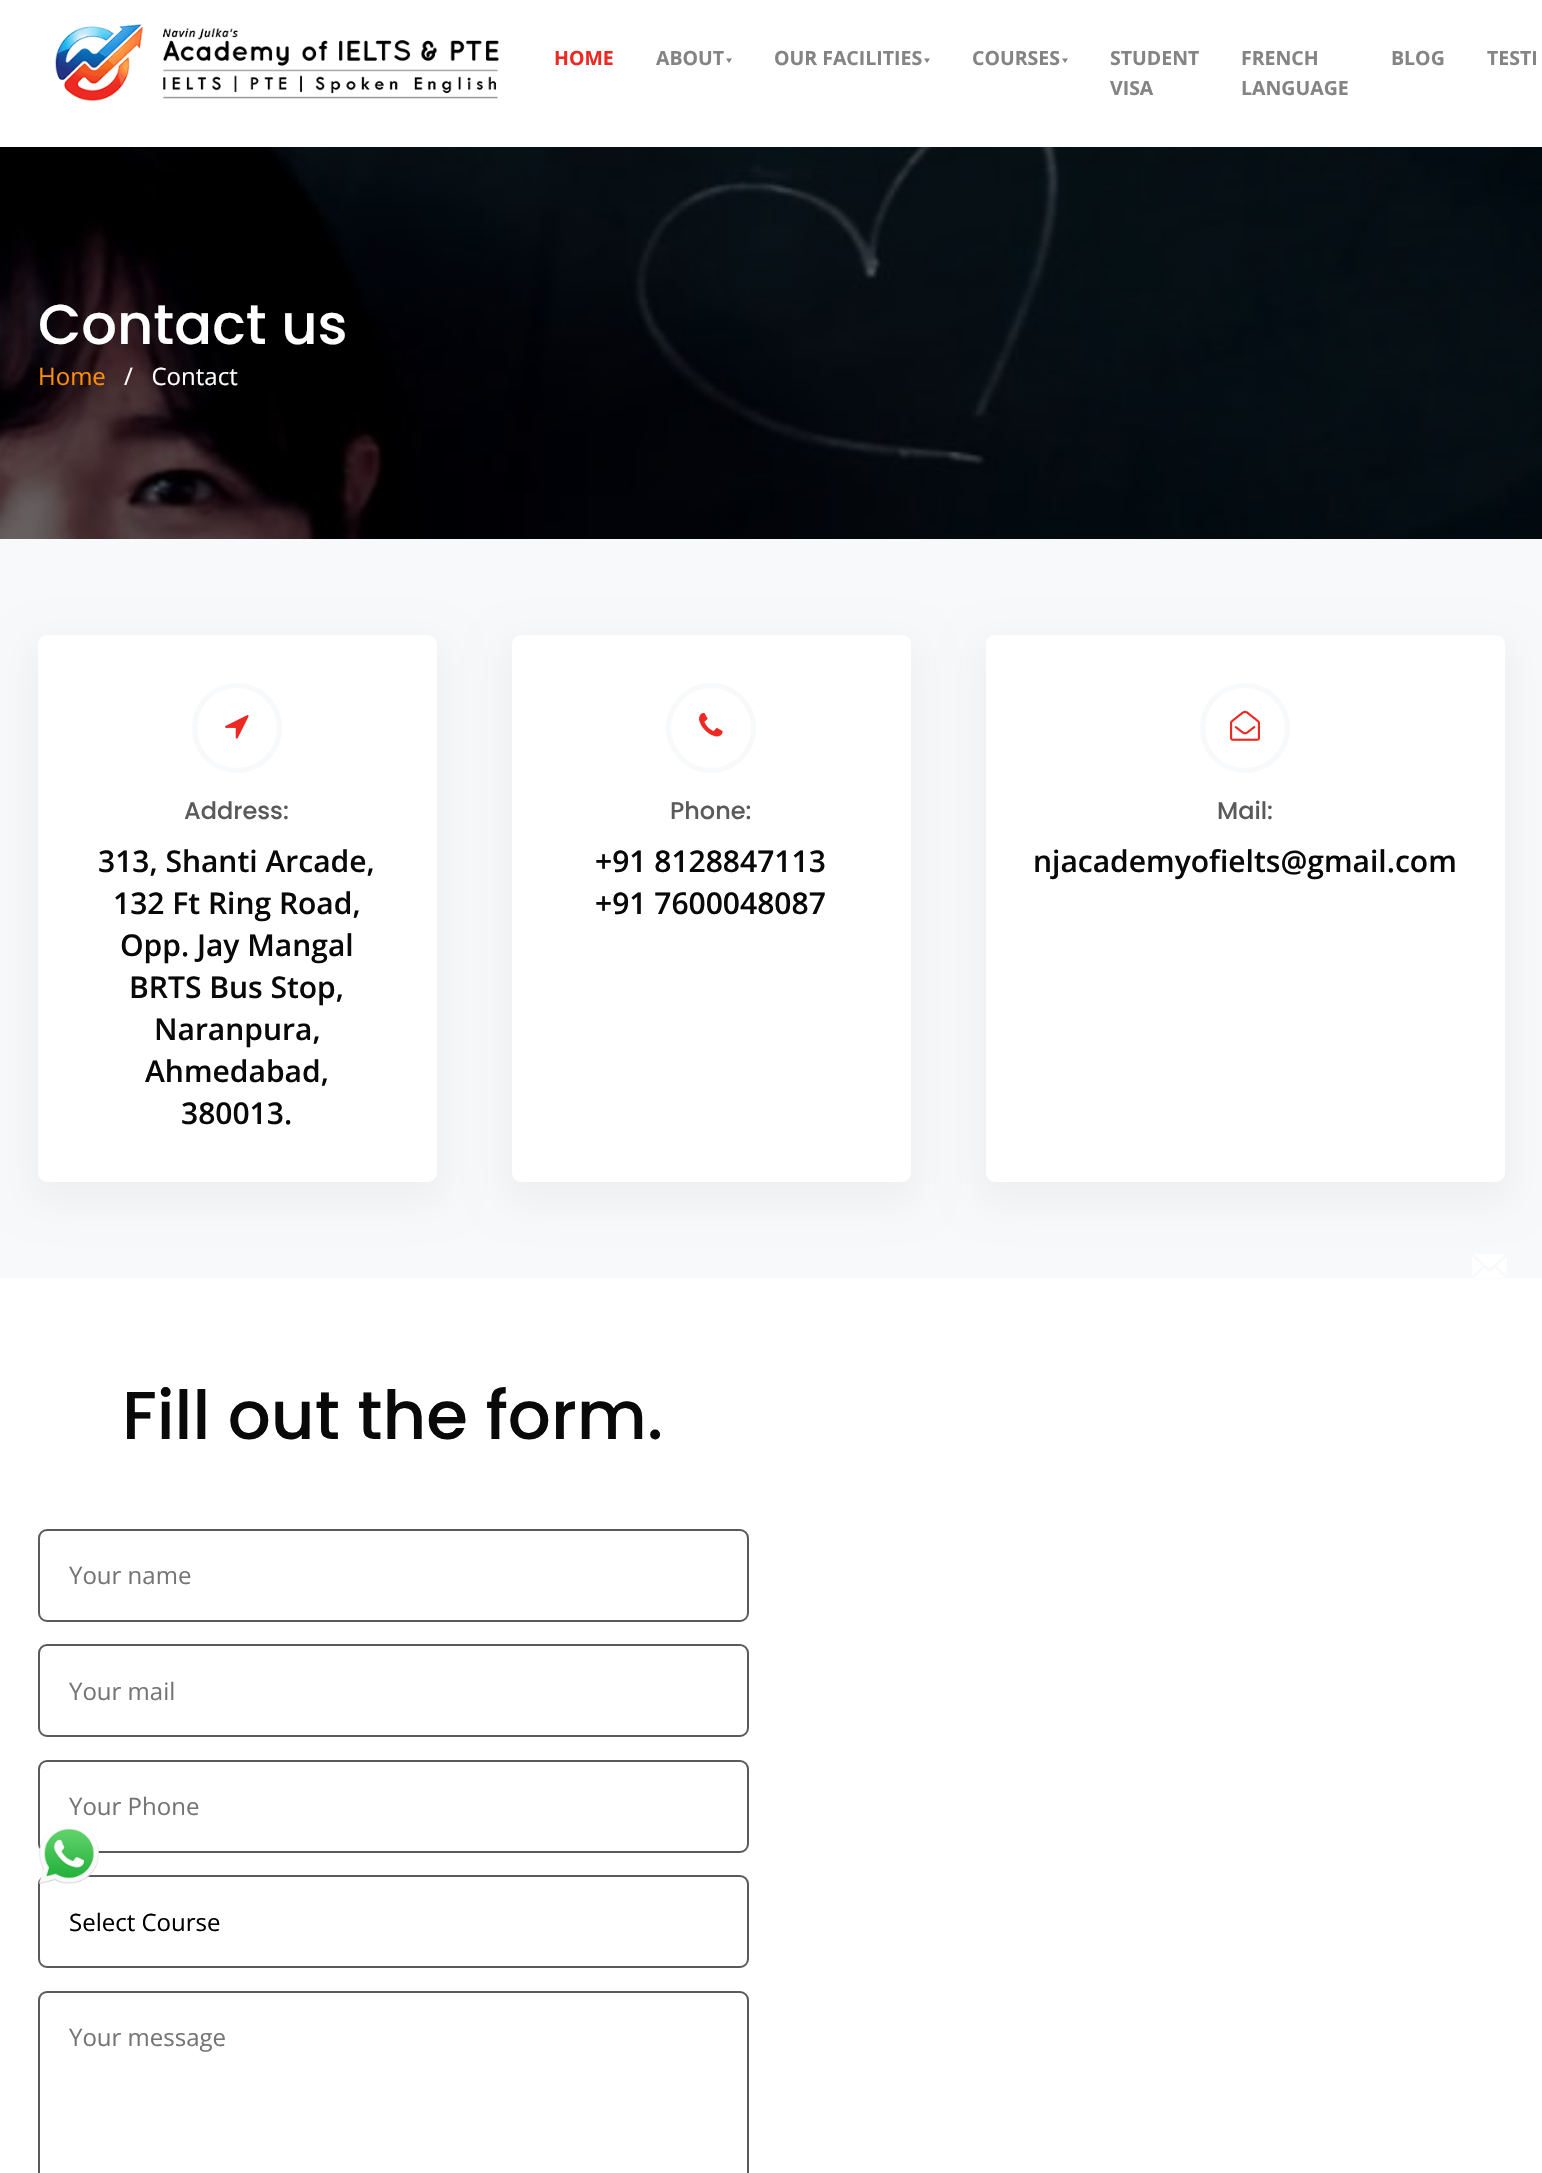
void draw(SkCanvas* canvas) {
    SkPaint paint;
    paint.setAntiAlias(true);
    auto face = [&](const char* family, int weight, float size, bool italic = false) {
        SkFontStyle style(weight, SkFontStyle::kNormal_Width,
            italic ? SkFontStyle::kItalic_Slant : SkFontStyle::kUpright_Slant);
        SkFont result(fontMgr->matchFamilyStyle(family, style), size);
        result.setSubpixel(true);
        return result;
    };
    auto write = [&](const char* s, float x, float y, const SkFont& font, SkColor color) {
        SkPaint ink(SkColor4f::FromColor(color));
        ink.setAntiAlias(true);
        canvas->drawString(s, x, y, font, ink);
    };
    auto block = [&](float x, float y, float w, float h, SkColor color) {
        SkPaint ink(SkColor4f::FromColor(color));
        ink.setAntiAlias(true);
        canvas->drawRect(SkRect::MakeXYWH(x, y, w, h), ink);
    };
    auto card = [&](float x, float y, float w, float h, float radius, SkColor color) {
        SkPaint ink(SkColor4f::FromColor(color));
        ink.setAntiAlias(true);
        canvas->drawRoundRect(SkRect::MakeXYWH(x, y, w, h), radius, radius, ink);
    };
    auto paste = [&](const char* path, float x, float y, float w, float h) {
        auto image = SkImages::DeferredFromEncodedData(SkData::MakeFromFileName(path));
        canvas->drawImageRect(image, SkRect::MakeXYWH(x, y, w, h), SkSamplingOptions());
    };
    canvas->clear(SK_ColorWHITE);
    paste("pic1.png", 55, 24, 444, 77);
    auto kFont1 = face("Open Sans", 700, 19.5f);
    write("HOME", 554, 65, kFont1, SkColorSetRGB(237, 41, 35));
    write("ABOUT", 656, 65, kFont1, SkColorSetRGB(132, 132, 132));
    paint.setColor(SkColorSetRGB(132, 132, 132));
    canvas->drawPath(SkPathBuilder().moveTo(726, 58.5f).lineTo(732, 58.5f).lineTo(729, 63).close().detach(), paint);
    write("OUR FACILITIES", 774, 65, kFont1, SkColorSetRGB(132, 132, 132));
    canvas->drawPath(SkPathBuilder().moveTo(924, 58.5f).lineTo(930, 58.5f).lineTo(927, 63).close().detach(), paint);
    write("COURSES", 972, 65, kFont1, SkColorSetRGB(132, 132, 132));
    canvas->drawPath(SkPathBuilder().moveTo(1062, 58.5f).lineTo(1068, 58.5f).lineTo(1065, 63).close().detach(), paint);
    write("STUDENT", 1110, 65, kFont1, SkColorSetRGB(132, 132, 132));
    write("VISA", 1110, 95, kFont1, SkColorSetRGB(132, 132, 132));
    write("FRENCH", 1241, 65, kFont1, SkColorSetRGB(132, 132, 132));
    write("LANGUAGE", 1241, 95, kFont1, SkColorSetRGB(132, 132, 132));
    write("BLOG", 1391, 65, kFont1, SkColorSetRGB(132, 132, 132));
    write("TESTI", 1487, 65, kFont1, SkColorSetRGB(132, 132, 132));
    paste("pic2.png", 0, 147, 1542, 392);
    auto kFont2 = face("Poppins", 500, 56);
    write("Contact us", 38, 344, kFont2, SK_ColorWHITE);
    auto kFont3 = face("Open Sans", 400, 24);
    write("Home", 38, 385, kFont3, SkColorSetRGB(255, 143, 7));
    write("/   Contact", 124, 385, kFont3, SK_ColorWHITE);
    block(0, 539, 1542, 739, SkColorSetRGB(248, 249, 250));
    paint.setColor(SkColorSetARGB(10, 0, 0, 0));
    paint.setMaskFilter(SkMaskFilter::MakeBlur(kNormal_SkBlurStyle, 18));
    canvas->drawRoundRect(SkRect::MakeXYWH(30, 641, 414, 562), 17, 17, paint);
    paint.setMaskFilter(nullptr);
    card(38, 635, 399, 547, 9, SK_ColorWHITE);
    paint.setStyle(SkPaint::kStroke_Style);
    paint.setStrokeWidth(5);
    paint.setColor(SkColorSetRGB(248, 249, 250));
    canvas->drawCircle(237, 728, 42.5f, paint);
    paste("pic3.png", 225, 715, 24, 24);
    auto kFont4 = face("Poppins", 500, 24);
    write("Address:", 184, 819, kFont4, SkColorSetRGB(90, 90, 90));
    auto kFont5 = face("Open Sans", 600, 30);
    write("313, Shanti Arcade,", 98, 872, kFont5, SkColorSetRGB(9, 9, 9));
    write("132 Ft Ring Road,", 113, 914, kFont5, SkColorSetRGB(9, 9, 9));
    write("Opp. Jay Mangal", 120, 956, kFont5, SkColorSetRGB(9, 9, 9));
    write("BRTS Bus Stop,", 129, 998, kFont5, SkColorSetRGB(9, 9, 9));
    write("Naranpura,", 154, 1040, kFont5, SkColorSetRGB(9, 9, 9));
    write("Ahmedabad,", 145, 1082, kFont5, SkColorSetRGB(9, 9, 9));
    write("380013.", 181, 1124, kFont5, SkColorSetRGB(9, 9, 9));
    paint.setStyle(SkPaint::kFill_Style);
    paint.setColor(SkColorSetARGB(10, 0, 0, 0));
    paint.setMaskFilter(SkMaskFilter::MakeBlur(kNormal_SkBlurStyle, 18));
    canvas->drawRoundRect(SkRect::MakeXYWH(504, 641, 414, 562), 17, 17, paint);
    paint.setMaskFilter(nullptr);
    card(512, 635, 399, 547, 9, SK_ColorWHITE);
    paint.setStyle(SkPaint::kStroke_Style);
    paint.setColor(SkColorSetRGB(248, 249, 250));
    canvas->drawCircle(711, 728, 42.5f, paint);
    paste("pic4.png", 699, 713, 24, 24);
    write("Phone:", 670, 819, kFont4, SkColorSetRGB(90, 90, 90));
    write("+91 8128847113", 595, 872, kFont5, SkColorSetRGB(9, 9, 9));
    write("+91 7600048087", 595, 914, kFont5, SkColorSetRGB(9, 9, 9));
    paint.setStyle(SkPaint::kFill_Style);
    paint.setColor(SkColorSetARGB(10, 0, 0, 0));
    paint.setMaskFilter(SkMaskFilter::MakeBlur(kNormal_SkBlurStyle, 18));
    canvas->drawRoundRect(SkRect::MakeXYWH(978, 641, 534, 562), 17, 17, paint);
    paint.setMaskFilter(nullptr);
    card(986, 635, 519, 547, 9, SK_ColorWHITE);
    paint.setStyle(SkPaint::kStroke_Style);
    paint.setColor(SkColorSetRGB(248, 249, 250));
    canvas->drawCircle(1245, 728, 42.5f, paint);
    paste("pic5.png", 1230, 710, 30, 31);
    write("Mail:", 1217, 819, kFont4, SkColorSetRGB(90, 90, 90));
    write("njacademyofielts@gmail.com", 1033, 872, kFont5, SkColorSetRGB(9, 9, 9));
    auto kFont6 = face("Poppins", 500, 67.5f);
    write("Fill out the form.", 122, 1439, kFont6, SkColorSetRGB(9, 9, 9));
    paint.setStrokeWidth(2);
    paint.setColor(SkColorSetRGB(90, 90, 90));
    canvas->drawRoundRect(SkRect::MakeXYWH(39, 1530, 709, 91), 8, 8, paint);
    write("Your name", 69, 1584, kFont3, SkColorSetRGB(117, 117, 117));
    canvas->drawRoundRect(SkRect::MakeXYWH(39, 1645, 709, 91), 8, 8, paint);
    write("Your mail", 69, 1700, kFont3, SkColorSetRGB(117, 117, 117));
    canvas->drawRoundRect(SkRect::MakeXYWH(39, 1761, 709, 91), 8, 8, paint);
    write("Your Phone", 69, 1815, kFont3, SkColorSetRGB(117, 117, 117));
    canvas->drawRoundRect(SkRect::MakeXYWH(39, 1876, 709, 91), 8, 8, paint);
    write("Select Course", 69, 1931, kFont3, SK_ColorBLACK);
    canvas->drawRoundRect(SkRect::MakeXYWH(39, 1992, 709, 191), 8, 8, paint);
    write("Your message", 69, 2046, kFont3, SkColorSetRGB(117, 117, 117));
    paste("pic6.png", 1472, 1254, 35, 25);
    paste("pic7.png", 38, 1824, 61, 60);
}
